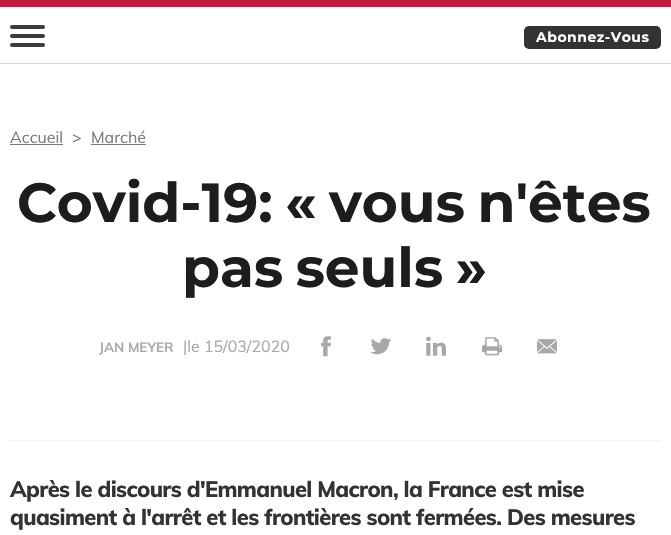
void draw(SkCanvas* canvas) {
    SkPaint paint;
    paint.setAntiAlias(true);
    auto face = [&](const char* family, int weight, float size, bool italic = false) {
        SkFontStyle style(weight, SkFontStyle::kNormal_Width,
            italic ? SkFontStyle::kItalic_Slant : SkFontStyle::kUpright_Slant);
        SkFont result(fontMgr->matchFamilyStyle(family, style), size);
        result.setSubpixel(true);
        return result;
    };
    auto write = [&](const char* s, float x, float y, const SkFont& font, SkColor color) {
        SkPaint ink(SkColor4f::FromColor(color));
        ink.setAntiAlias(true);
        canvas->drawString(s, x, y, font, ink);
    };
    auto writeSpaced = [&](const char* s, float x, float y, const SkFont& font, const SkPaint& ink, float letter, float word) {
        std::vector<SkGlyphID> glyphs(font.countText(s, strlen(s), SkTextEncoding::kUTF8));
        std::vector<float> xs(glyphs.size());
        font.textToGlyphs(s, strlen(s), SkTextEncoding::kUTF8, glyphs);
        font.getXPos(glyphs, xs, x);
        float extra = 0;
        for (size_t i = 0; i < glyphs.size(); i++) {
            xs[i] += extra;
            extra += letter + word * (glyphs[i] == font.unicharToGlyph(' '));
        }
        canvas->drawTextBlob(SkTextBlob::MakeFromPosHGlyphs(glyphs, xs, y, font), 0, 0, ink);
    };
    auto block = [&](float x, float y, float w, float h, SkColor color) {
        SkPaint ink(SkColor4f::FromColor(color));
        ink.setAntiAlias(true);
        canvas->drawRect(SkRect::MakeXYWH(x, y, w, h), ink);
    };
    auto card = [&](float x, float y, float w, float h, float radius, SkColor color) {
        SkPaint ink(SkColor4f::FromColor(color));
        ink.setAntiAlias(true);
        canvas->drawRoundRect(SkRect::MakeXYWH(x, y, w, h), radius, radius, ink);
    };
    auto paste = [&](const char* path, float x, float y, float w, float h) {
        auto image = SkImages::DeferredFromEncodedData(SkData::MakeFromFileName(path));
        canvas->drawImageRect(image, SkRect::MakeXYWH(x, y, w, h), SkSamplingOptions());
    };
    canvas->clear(SK_ColorWHITE);
    block(0, 0, 671, 7, SkColorSetRGB(196, 28, 63));
    block(0, 63, 671, 1, SkColorSetRGB(218, 218, 218));
    card(10, 25, 35, 4, 2, SkColorSetRGB(61, 61, 61));
    card(10, 34, 35, 4, 2, SkColorSetRGB(61, 61, 61));
    card(10, 43, 35, 4, 2, SkColorSetRGB(61, 61, 61));
    card(524, 26, 137, 23, 5, SkColorSetRGB(52, 51, 51));
    auto kFont1 = face("Montserrat", 700, 14);
    paint.setColor(SK_ColorWHITE);
    writeSpaced("Abonnez-Vous", 536, 42, kFont1, paint, 0.5f, 0);
    auto kFont2 = face("Muli", 400, 16);
    write("Accueil", 10, 143, kFont2, SkColorSetRGB(123, 123, 123));
    block(10, 144, 53, 1, SkColorSetRGB(123, 123, 123));
    write(">", 72, 143, kFont2, SkColorSetRGB(123, 123, 123));
    write("Marché", 91, 143, kFont2, SkColorSetRGB(123, 123, 123));
    block(91, 144, 55, 1, SkColorSetRGB(123, 123, 123));
    auto kFont3 = face("Montserrat", 700, 55);
    paint.setColor(SkColorSetRGB(29, 29, 27));
    writeSpaced("Covid-19: « vous n'êtes", 17, 222, kFont3, paint, 0, -3);
    writeSpaced("pas seuls »", 182, 287, kFont3, paint, 0, -3);
    auto kFont4 = face("Muli", 700, 13.5f);
    write("JAN MEYER", 99, 352, kFont4, SkColorSetRGB(169, 169, 169));
    write("|le 15/03/2020", 183, 352, kFont2, SkColorSetRGB(169, 169, 169));
    paste("pic1.png", 321, 336, 10, 21);
    paste("pic2.png", 371, 338, 20, 17);
    paste("pic3.png", 426, 336, 20, 20);
    paste("pic4.png", 482, 337, 20, 19);
    paste("pic5.png", 537, 339, 20, 15);
    block(10, 440, 651, 1, SkColorSetRGB(244, 244, 244));
    auto kFont5 = face("Muli", 800, 22);
    paint.setColor(SkColorSetRGB(52, 51, 51));
    writeSpaced("Après le discours d'Emmanuel Macron, la France est mise", 10, 497, kFont5, paint, -0.65f, 0);
    writeSpaced("quasiment à l'arrêt et les frontières sont fermées. Des mesures", 10, 525, kFont5, paint, -0.65f, 0);
}
